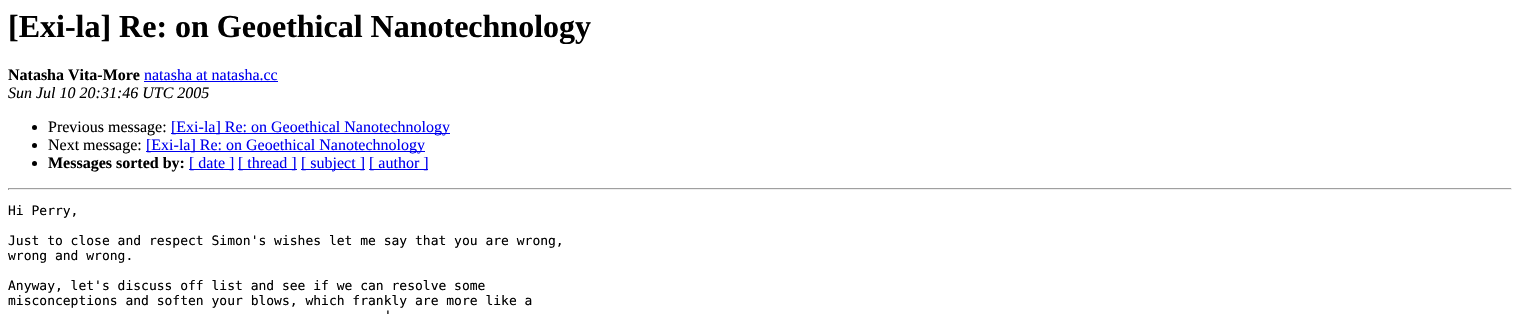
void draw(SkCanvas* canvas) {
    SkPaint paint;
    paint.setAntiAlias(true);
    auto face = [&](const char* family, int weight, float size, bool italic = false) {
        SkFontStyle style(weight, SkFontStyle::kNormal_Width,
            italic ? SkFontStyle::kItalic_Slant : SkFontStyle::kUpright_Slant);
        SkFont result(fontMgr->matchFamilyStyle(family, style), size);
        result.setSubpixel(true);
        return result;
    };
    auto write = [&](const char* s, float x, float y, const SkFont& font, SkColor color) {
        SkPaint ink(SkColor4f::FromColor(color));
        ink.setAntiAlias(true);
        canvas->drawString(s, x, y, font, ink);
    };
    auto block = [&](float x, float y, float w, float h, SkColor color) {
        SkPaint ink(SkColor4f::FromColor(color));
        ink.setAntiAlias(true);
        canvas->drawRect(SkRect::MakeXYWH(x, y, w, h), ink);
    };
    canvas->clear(SK_ColorWHITE);
    auto kFont1 = face("Liberation Serif", 700, 32);
    write("[Exi-la] Re: on Geoethical Nanotechnology", 8, 37, kFont1, SK_ColorBLACK);
    auto kFont2 = face("Liberation Serif", 700, 16);
    write("Natasha Vita-More", 8, 80, kFont2, SK_ColorBLACK);
    auto kFont3 = face("Liberation Serif", 400, 16);
    write("natasha at natasha.cc", 144, 80, kFont3, SkColorSetRGB(0, 0, 238));
    block(144, 81, 134, 1, SkColorSetRGB(0, 0, 238));
    auto kFont4 = face("Liberation Serif", 400, 16, true);
    write("Sun Jul 10 20:31:46 UTC 2005", 8, 98, kFont4, SK_ColorBLACK);
    paint.setColor(SK_ColorBLACK);
    canvas->drawCircle(34.5f, 127.5f, 2.5f, paint);
    write("Previous message:", 48, 132, kFont3, SK_ColorBLACK);
    block(171, 133, 279, 1, SkColorSetRGB(0, 0, 238));
    write("[Exi-la] Re: on Geoethical Nanotechnology", 171, 132, kFont3, SkColorSetRGB(0, 0, 238));
    canvas->drawCircle(34.5f, 145.5f, 2.5f, paint);
    write("Next message:", 48, 150, kFont3, SK_ColorBLACK);
    block(146, 151, 279, 1, SkColorSetRGB(0, 0, 238));
    write("[Exi-la] Re: on Geoethical Nanotechnology", 146, 150, kFont3, SkColorSetRGB(0, 0, 238));
    canvas->drawCircle(34.5f, 163.5f, 2.5f, paint);
    write("Messages sorted by:", 48, 168, kFont2, SK_ColorBLACK);
    block(189, 169, 45, 1, SkColorSetRGB(0, 0, 238));
    write("[ date ]", 189, 168, kFont3, SkColorSetRGB(0, 0, 238));
    block(238, 169, 59, 1, SkColorSetRGB(0, 0, 238));
    write("[ thread ]", 238, 168, kFont3, SkColorSetRGB(0, 0, 238));
    block(301, 169, 64, 1, SkColorSetRGB(0, 0, 238));
    write("[ subject ]", 301, 168, kFont3, SkColorSetRGB(0, 0, 238));
    block(369, 169, 59, 1, SkColorSetRGB(0, 0, 238));
    write("[ author ]", 369, 168, kFont3, SkColorSetRGB(0, 0, 238));
    block(8, 188, 1504, 1, SkColorSetRGB(159, 159, 159));
    block(1511, 188, 1, 2, SkColorSetRGB(238, 238, 238));
    block(8, 189, 1504, 1, SkColorSetRGB(238, 238, 238));
    block(8, 188, 1, 2, SkColorSetRGB(159, 159, 159));
    auto kFont5 = face("DejaVu Sans Mono", 400, 13);
    write("Hi Perry,", 8, 215, kFont5, SK_ColorBLACK);
    write("Just to close and respect Simon's wishes let me say that you are wrong,", 8, 245, kFont5, SK_ColorBLACK);
    write("wrong and wrong.", 8, 260, kFont5, SK_ColorBLACK);
    write("Anyway, let's discuss off list and see if we can resolve some", 8, 290, kFont5, SK_ColorBLACK);
    write("misconceptions and soften your blows, which frankly are more like a", 8, 305, kFont5, SK_ColorBLACK);
    write("'", 384, 320, kFont5, SK_ColorBLACK);
}
